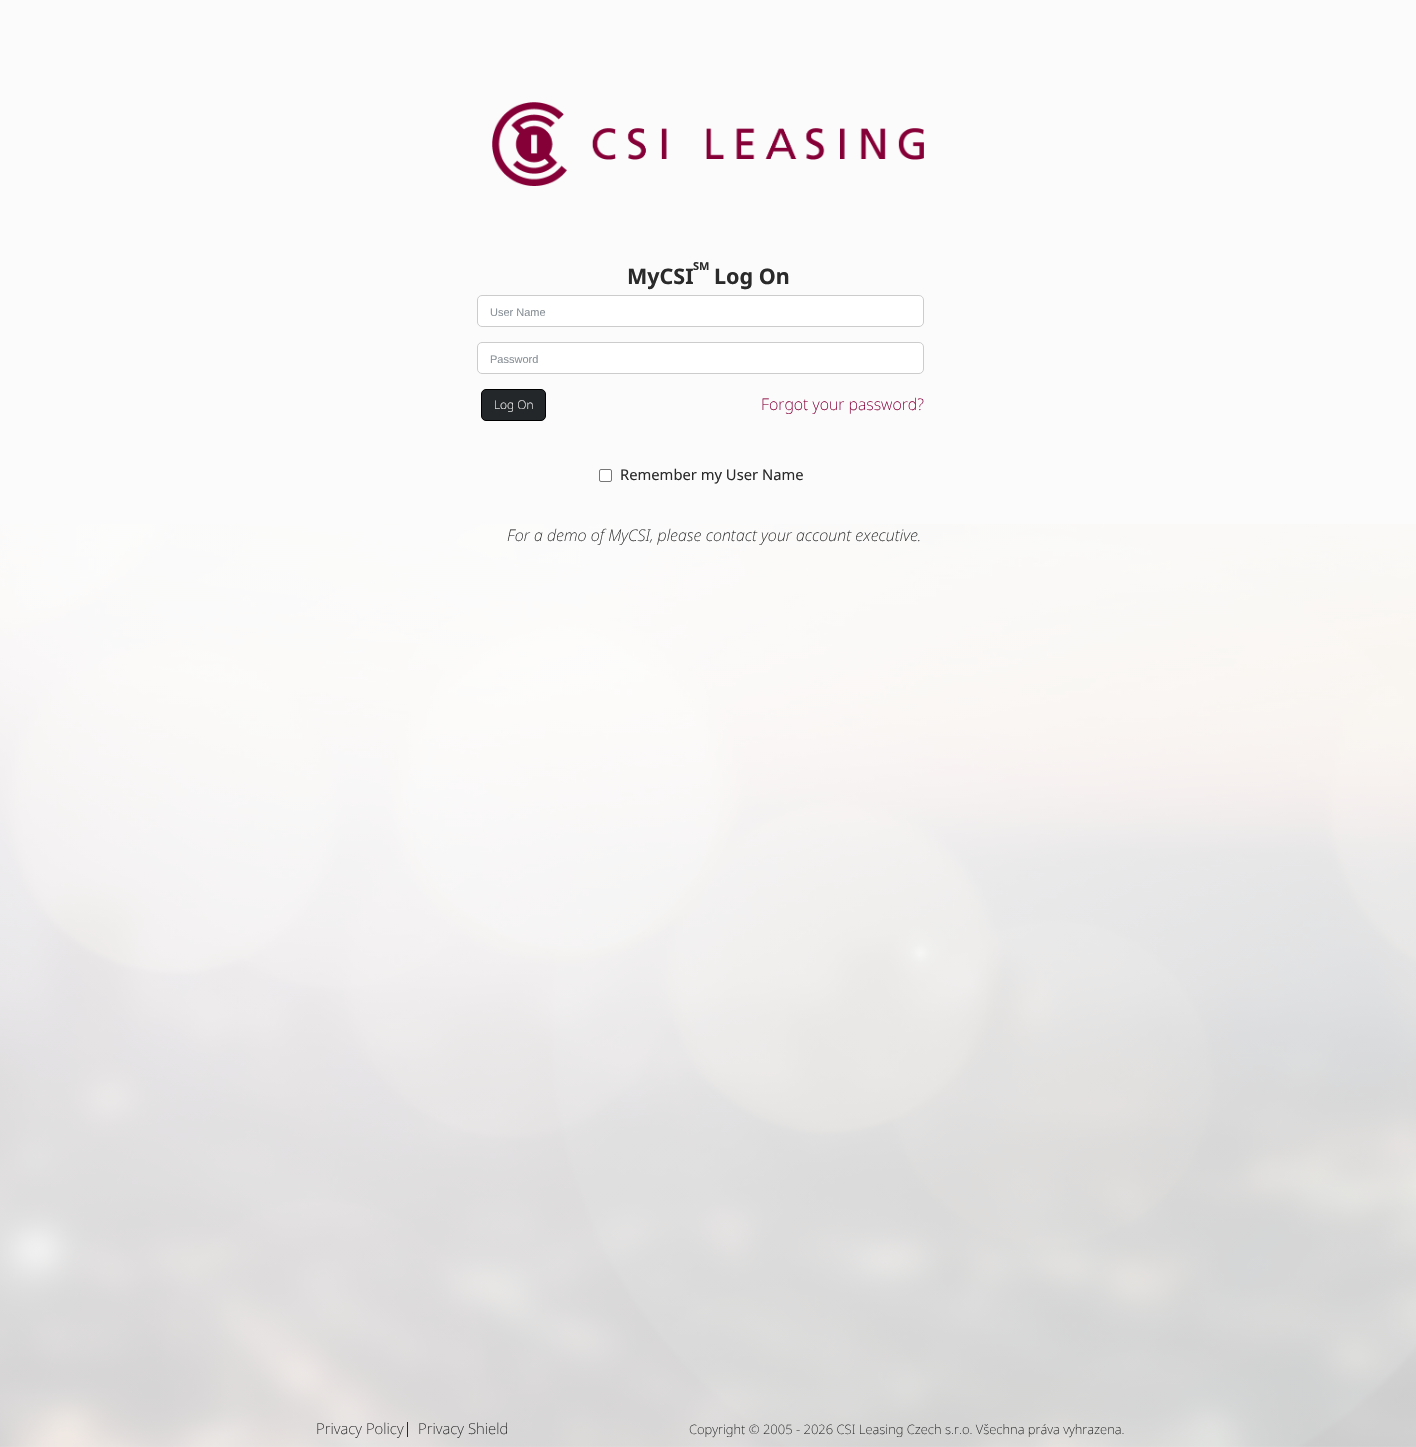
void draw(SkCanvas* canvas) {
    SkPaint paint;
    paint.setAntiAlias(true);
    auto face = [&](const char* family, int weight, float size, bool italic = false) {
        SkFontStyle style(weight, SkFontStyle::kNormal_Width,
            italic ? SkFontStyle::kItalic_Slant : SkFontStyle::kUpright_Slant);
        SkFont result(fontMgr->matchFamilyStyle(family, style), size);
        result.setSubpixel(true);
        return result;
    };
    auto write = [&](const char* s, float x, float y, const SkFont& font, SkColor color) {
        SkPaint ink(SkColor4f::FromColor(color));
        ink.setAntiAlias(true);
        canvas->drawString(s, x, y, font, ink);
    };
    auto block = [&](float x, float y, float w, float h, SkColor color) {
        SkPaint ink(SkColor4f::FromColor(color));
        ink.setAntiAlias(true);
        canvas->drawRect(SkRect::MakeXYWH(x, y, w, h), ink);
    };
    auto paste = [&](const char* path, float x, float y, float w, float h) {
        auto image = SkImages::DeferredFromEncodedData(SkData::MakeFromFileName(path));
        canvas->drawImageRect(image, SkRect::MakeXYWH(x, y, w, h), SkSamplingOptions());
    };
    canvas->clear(SkColorSetRGB(251, 251, 251));
    paste("pic1.png", 0, 524, 1416, 923);
    paste("pic2.png", 492, 102, 432, 84);
    auto kFont1 = face("Noto Sans", 700, 11);
    write("SM", 693, 270, kFont1, SkColorSetRGB(42, 42, 42));
    auto kFont2 = face("Noto Sans", 700, 21.5f);
    write("MyCSI", 627, 284, kFont2, SkColorSetRGB(42, 42, 42));
    write("Log On", 714, 284, kFont2, SkColorSetRGB(42, 42, 42));
    paint.setColor(SK_ColorWHITE);
    canvas->drawRoundRect(SkRect::MakeXYWH(477.5f, 295.5f, 446, 31), 4.5f, 4.5f, paint);
    paint.setStyle(SkPaint::kStroke_Style);
    paint.setStrokeWidth(1);
    paint.setColor(SkColorSetRGB(204, 204, 204));
    canvas->drawRoundRect(SkRect::MakeXYWH(477.5f, 295.5f, 446, 31), 4.5f, 4.5f, paint);
    auto kFont3 = face("Liberation Sans", 400, 11);
    write("User Name", 490, 316, kFont3, SkColorSetRGB(137, 145, 151));
    paint.setStyle(SkPaint::kFill_Style);
    paint.setColor(SK_ColorWHITE);
    canvas->drawRoundRect(SkRect::MakeXYWH(477.5f, 342.5f, 446, 31), 4.5f, 4.5f, paint);
    paint.setStyle(SkPaint::kStroke_Style);
    paint.setColor(SkColorSetRGB(204, 204, 204));
    canvas->drawRoundRect(SkRect::MakeXYWH(477.5f, 342.5f, 446, 31), 4.5f, 4.5f, paint);
    write("Password", 490, 363, kFont3, SkColorSetRGB(137, 145, 151));
    paint.setStyle(SkPaint::kFill_Style);
    paint.setColor(SkColorSetRGB(36, 39, 41));
    canvas->drawRoundRect(SkRect::MakeXYWH(481.5f, 389.5f, 64, 31), 4.5f, 4.5f, paint);
    paint.setStyle(SkPaint::kStroke_Style);
    paint.setColor(SK_ColorBLACK);
    canvas->drawRoundRect(SkRect::MakeXYWH(481.5f, 389.5f, 64, 31), 4.5f, 4.5f, paint);
    auto kFont4 = face("Noto Sans", 200, 12);
    write("Log On", 494, 409, kFont4, SK_ColorWHITE);
    auto kFont5 = face("Noto Sans", 200, 16);
    write("Forgot your password?", 761, 410, kFont5, SkColorSetRGB(134, 0, 56));
    paint.setStyle(SkPaint::kFill_Style);
    paint.setColor(SK_ColorWHITE);
    canvas->drawRoundRect(SkRect::MakeXYWH(599.5f, 469.5f, 12, 12), 1.5f, 1.5f, paint);
    paint.setStyle(SkPaint::kStroke_Style);
    paint.setColor(SkColorSetRGB(118, 118, 118));
    canvas->drawRoundRect(SkRect::MakeXYWH(599.5f, 469.5f, 12, 12), 1.5f, 1.5f, paint);
    auto kFont6 = face("Noto Sans", 400, 14.75f);
    write("Remember my User Name", 620, 480, kFont6, SkColorSetRGB(42, 42, 42));
    auto kFont7 = face("Noto Sans", 200, 16, true);
    write("For a demo of MyCSI, please contact your account executive.", 507, 541, kFont7, SkColorSetRGB(42, 42, 42));
    auto kFont8 = face("Noto Sans", 200, 15);
    write("Privacy Policy", 316, 1434, kFont8, SkColorSetRGB(42, 42, 42));
    block(407, 1422, 1, 15, SkColorSetRGB(42, 42, 42));
    write("Privacy Shield", 418, 1434, kFont8, SkColorSetRGB(42, 42, 42));
    auto kFont9 = face("Noto Sans", 200, 13);
    write("Copyright © 2005 - 2026 CSI Leasing Czech s.r.o. Všechna práva vyhrazena.", 689, 1434, kFont9, SkColorSetRGB(42, 42, 42));
}
